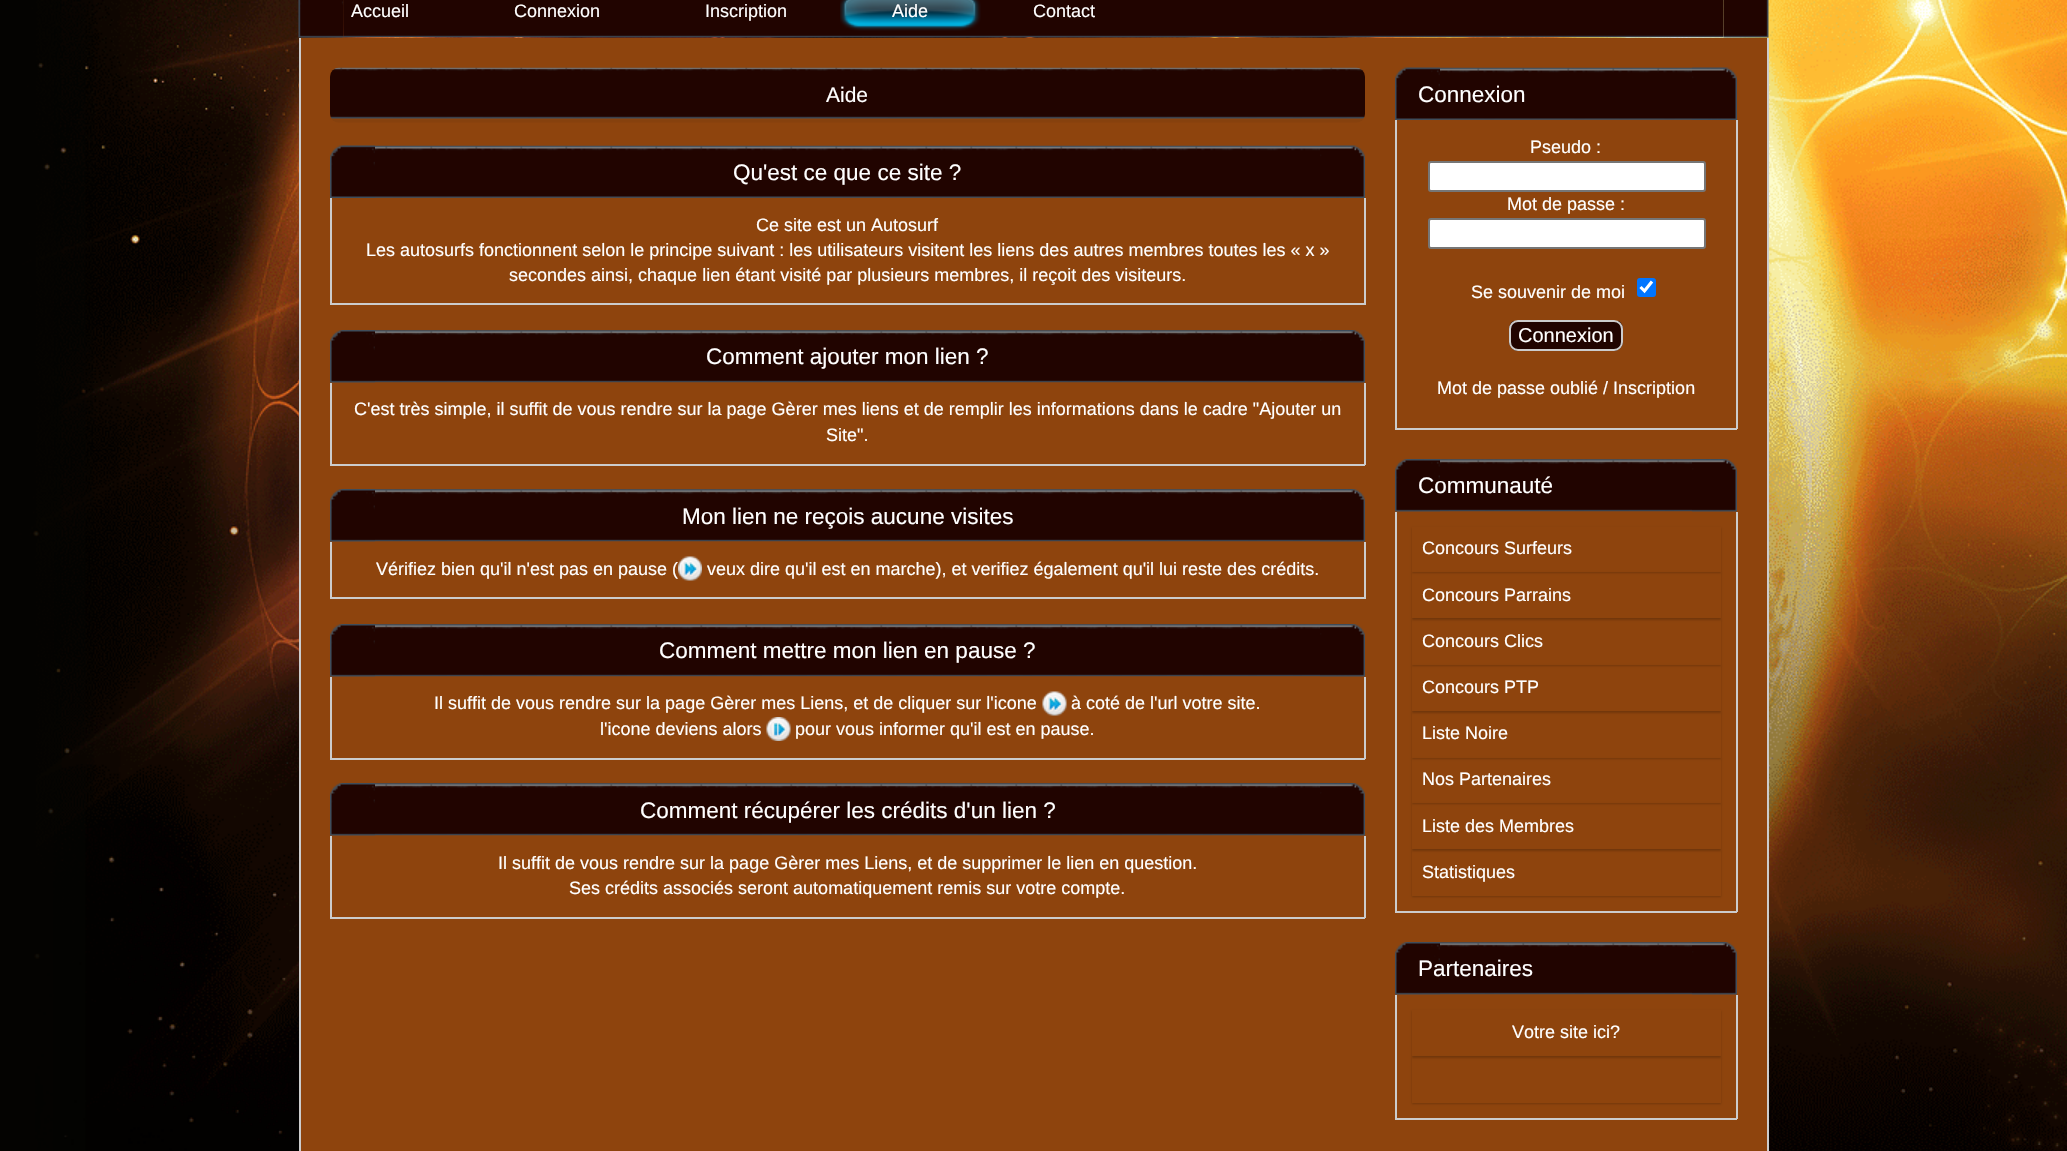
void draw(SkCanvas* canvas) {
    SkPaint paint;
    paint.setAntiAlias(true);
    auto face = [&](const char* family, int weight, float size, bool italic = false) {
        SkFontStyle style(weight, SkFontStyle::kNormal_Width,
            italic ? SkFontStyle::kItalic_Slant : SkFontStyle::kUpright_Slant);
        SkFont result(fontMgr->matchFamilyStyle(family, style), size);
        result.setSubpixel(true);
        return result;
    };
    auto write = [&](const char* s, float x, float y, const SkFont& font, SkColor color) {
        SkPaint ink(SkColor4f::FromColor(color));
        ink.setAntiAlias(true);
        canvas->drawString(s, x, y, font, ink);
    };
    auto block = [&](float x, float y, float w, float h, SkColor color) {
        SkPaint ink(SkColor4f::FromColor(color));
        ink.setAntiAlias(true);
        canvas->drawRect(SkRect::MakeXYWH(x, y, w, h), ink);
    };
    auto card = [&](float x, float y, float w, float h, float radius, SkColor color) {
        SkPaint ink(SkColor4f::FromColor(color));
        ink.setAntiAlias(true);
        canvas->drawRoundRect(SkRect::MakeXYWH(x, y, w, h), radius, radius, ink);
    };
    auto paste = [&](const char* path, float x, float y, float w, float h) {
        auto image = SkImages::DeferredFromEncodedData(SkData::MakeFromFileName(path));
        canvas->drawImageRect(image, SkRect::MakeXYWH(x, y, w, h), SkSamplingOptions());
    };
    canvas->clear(SK_ColorWHITE);
    paste("pic1.png", 0, 0, 2067, 1151);
    paste("pic2.png", 298, 0, 46, 38);
    paste("pic3.png", 1723, 0, 46, 38);
    paste("pic4.png", 343, 0, 1381, 38);
    auto kFont1 = face("Liberation Sans", 400, 18);
    write("Accueil", 351, 17, kFont1, SK_ColorWHITE);
    write("Connexion", 514, 17, kFont1, SK_ColorWHITE);
    write("Inscription", 705, 17, kFont1, SK_ColorWHITE);
    paste("pic5.png", 840, 0, 141, 31);
    write("Aide", 892, 17, kFont1, SK_ColorWHITE);
    write("Contact", 1033, 17, kFont1, SK_ColorWHITE);
    block(301, 38, 1466, 1113, SkColorSetRGB(142, 68, 13));
    block(1767, 38, 2, 1113, SkColorSetRGB(204, 204, 204));
    block(299, 38, 2, 1113, SkColorSetRGB(204, 204, 204));
    paste("pic6.png", 330, 67, 1035, 56);
    auto kFont2 = face("Liberation Sans", 400, 21);
    write("Aide", 826, 102, kFont2, SK_ColorWHITE);
    paste("pic7.png", 330, 145, 45, 53);
    paste("pic8.png", 1320, 145, 45, 53);
    paste("pic9.png", 375, 145, 945, 53);
    auto kFont3 = face("Liberation Sans", 400, 22.5f);
    write("Qu'est ce que ce site ?", 733, 180, kFont3, SK_ColorWHITE);
    block(1364, 198, 2, 107, SkColorSetRGB(204, 204, 204));
    block(330, 303, 1035, 2, SkColorSetRGB(204, 204, 204));
    block(330, 198, 2, 107, SkColorSetRGB(204, 204, 204));
    write("Ce site est un Autosurf", 756, 231, kFont1, SK_ColorWHITE);
    write("Les autosurfs fonctionnent selon le principe suivant : les utilisateurs visitent les liens des autres membres toutes les « x »", 366, 256, kFont1, SK_ColorWHITE);
    write("secondes ainsi, chaque lien étant visité par plusieurs membres, il reçoit des visiteurs.", 509, 281, kFont1, SK_ColorWHITE);
    paste("pic10.png", 330, 330, 45, 53);
    paste("pic11.png", 1320, 330, 45, 53);
    paste("pic12.png", 375, 330, 945, 53);
    write("Comment ajouter mon lien ?", 706, 364, kFont3, SK_ColorWHITE);
    block(1364, 383, 2, 82, SkColorSetRGB(204, 204, 204));
    block(330, 464, 1035, 2, SkColorSetRGB(204, 204, 204));
    block(330, 383, 2, 82, SkColorSetRGB(204, 204, 204));
    write("C'est très simple, il suffit de vous rendre sur la page Gèrer mes liens et de remplir les informations dans le cadre \"Ajouter un", 354, 415, kFont1, SK_ColorWHITE);
    write("Site\".", 826, 441, kFont1, SK_ColorWHITE);
    paste("pic10.png", 330, 489, 45, 53);
    paste("pic11.png", 1320, 489, 45, 53);
    paste("pic13.png", 375, 489, 945, 53);
    write("Mon lien ne reçois aucune visites", 682, 524, kFont3, SK_ColorWHITE);
    block(1364, 542, 2, 57, SkColorSetRGB(204, 204, 204));
    block(330, 597, 1035, 2, SkColorSetRGB(204, 204, 204));
    block(330, 542, 2, 57, SkColorSetRGB(204, 204, 204));
    write("Vérifiez bien qu'il n'est pas en pause (", 376, 575, kFont1, SK_ColorWHITE);
    paste("pic14.png", 678, 556, 24, 25);
    write("veux dire qu'il est en marche), et verifiez également qu'il lui reste des crédits.", 707, 575, kFont1, SK_ColorWHITE);
    paste("pic10.png", 330, 624, 45, 53);
    paste("pic11.png", 1320, 624, 45, 53);
    paste("pic13.png", 375, 624, 945, 53);
    write("Comment mettre mon lien en pause ?", 659, 658, kFont3, SK_ColorWHITE);
    block(1364, 677, 2, 82, SkColorSetRGB(204, 204, 204));
    block(330, 758, 1035, 2, SkColorSetRGB(204, 204, 204));
    block(330, 677, 2, 82, SkColorSetRGB(204, 204, 204));
    write("Il suffit de vous rendre sur la page Gèrer mes Liens, et de cliquer sur l'icone", 434, 709, kFont1, SK_ColorWHITE);
    paste("pic15.png", 1042, 691, 25, 25);
    write("à coté de l'url votre site.", 1071, 709, kFont1, SK_ColorWHITE);
    write("l'icone deviens alors", 600, 735, kFont1, SK_ColorWHITE);
    paste("pic16.png", 766, 717, 25, 24);
    write("pour vous informer qu'il est en pause.", 795, 735, kFont1, SK_ColorWHITE);
    paste("pic10.png", 330, 783, 45, 53);
    paste("pic11.png", 1320, 783, 45, 53);
    paste("pic12.png", 375, 783, 945, 53);
    write("Comment récupérer les crédits d'un lien ?", 640, 818, kFont3, SK_ColorWHITE);
    block(1364, 836, 2, 82, SkColorSetRGB(204, 204, 204));
    block(330, 917, 1035, 2, SkColorSetRGB(204, 204, 204));
    block(330, 836, 2, 82, SkColorSetRGB(204, 204, 204));
    write("Il suffit de vous rendre sur la page Gèrer mes Liens, et de supprimer le lien en question.", 498, 869, kFont1, SK_ColorWHITE);
    write("Ses crédits associés seront automatiquement remis sur votre compte.", 569, 894, kFont1, SK_ColorWHITE);
    paste("pic17.png", 1395, 67, 45, 53);
    paste("pic18.png", 1692, 67, 45, 53);
    paste("pic19.png", 1440, 67, 252, 53);
    write("Connexion", 1418, 102, kFont3, SK_ColorWHITE);
    block(1736, 120, 2, 309, SkColorSetRGB(204, 204, 204));
    block(1395, 428, 342, 2, SkColorSetRGB(204, 204, 204));
    block(1395, 120, 2, 309, SkColorSetRGB(204, 204, 204));
    write("Pseudo :", 1530, 153, kFont1, SK_ColorWHITE);
    paint.setColor(SK_ColorWHITE);
    canvas->drawRoundRect(SkRect::MakeXYWH(1429, 162, 276, 29), 2, 2, paint);
    paint.setStyle(SkPaint::kStroke_Style);
    paint.setStrokeWidth(2);
    paint.setColor(SkColorSetRGB(118, 118, 118));
    canvas->drawRoundRect(SkRect::MakeXYWH(1429, 162, 276, 29), 2, 2, paint);
    write("Mot de passe :", 1507, 210, kFont1, SK_ColorWHITE);
    paint.setStyle(SkPaint::kFill_Style);
    paint.setColor(SK_ColorWHITE);
    canvas->drawRoundRect(SkRect::MakeXYWH(1429, 219, 276, 29), 2, 2, paint);
    paint.setStyle(SkPaint::kStroke_Style);
    paint.setColor(SkColorSetRGB(118, 118, 118));
    canvas->drawRoundRect(SkRect::MakeXYWH(1429, 219, 276, 29), 2, 2, paint);
    write("Se souvenir de moi", 1471, 298, kFont1, SK_ColorWHITE);
    card(1637, 278, 19, 19, 3, SkColorSetRGB(0, 117, 255));
    paint.setStrokeWidth(3.1f);
    paint.setColor(SK_ColorWHITE);
    canvas->drawPath(SkPathBuilder().moveTo(1640.5f, 287).lineTo(1644.5f, 291).lineTo(1652, 281.5f).detach(), paint);
    paste("pic20.png", 1509, 321, 114, 30);
    paint.setStrokeWidth(2);
    paint.setColor(SkColorSetRGB(204, 204, 204));
    canvas->drawRoundRect(SkRect::MakeXYWH(1510, 321, 112, 29), 8, 8, paint);
    auto kFont4 = face("Liberation Sans", 400, 20);
    write("Connexion", 1518, 342, kFont4, SK_ColorWHITE);
    write("Mot de passe oublié / Inscription", 1437, 394, kFont1, SK_ColorWHITE);
    paste("pic21.png", 1395, 459, 45, 53);
    paste("pic22.png", 1692, 459, 45, 53);
    paste("pic23.png", 1440, 459, 252, 53);
    write("Communauté", 1418, 493, kFont3, SK_ColorWHITE);
    block(1736, 512, 2, 400, SkColorSetRGB(204, 204, 204));
    block(1395, 911, 342, 2, SkColorSetRGB(204, 204, 204));
    block(1395, 512, 2, 400, SkColorSetRGB(204, 204, 204));
    canvas->save();
    canvas->clipPath(SkPathBuilder(SkPathFillType::kEvenOdd).moveTo(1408, 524).lineTo(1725, 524).lineTo(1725, 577).lineTo(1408, 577).close().moveTo(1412, 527).lineTo(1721, 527).lineTo(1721, 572).lineTo(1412, 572).close().detach(), true);
    paint.setStyle(SkPaint::kFill_Style);
    paint.setColor(SkColorSetARGB(51, 0, 0, 0));
    paint.setMaskFilter(SkMaskFilter::MakeBlur(kNormal_SkBlurStyle, 1));
    canvas->drawRect(SkRect::MakeXYWH(1412, 528, 309, 45), paint);
    paint.setMaskFilter(nullptr);
    canvas->restore();
    write("Concours Surfeurs", 1422, 554, kFont1, SK_ColorWHITE);
    canvas->save();
    canvas->clipPath(SkPathBuilder(SkPathFillType::kEvenOdd).moveTo(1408, 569).lineTo(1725, 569).lineTo(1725, 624).lineTo(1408, 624).close().moveTo(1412, 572).lineTo(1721, 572).lineTo(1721, 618).lineTo(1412, 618).close().detach(), true);
    paint.setMaskFilter(SkMaskFilter::MakeBlur(kNormal_SkBlurStyle, 1));
    canvas->drawRect(SkRect::MakeXYWH(1412, 573, 309, 47), paint);
    paint.setMaskFilter(nullptr);
    canvas->restore();
    write("Concours Parrains", 1422, 601, kFont1, SK_ColorWHITE);
    canvas->save();
    canvas->clipPath(SkPathBuilder(SkPathFillType::kEvenOdd).moveTo(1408, 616).lineTo(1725, 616).lineTo(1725, 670).lineTo(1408, 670).close().moveTo(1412, 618).lineTo(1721, 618).lineTo(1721, 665).lineTo(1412, 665).close().detach(), true);
    paint.setMaskFilter(SkMaskFilter::MakeBlur(kNormal_SkBlurStyle, 1));
    canvas->drawRect(SkRect::MakeXYWH(1412, 620, 309, 46), paint);
    paint.setMaskFilter(nullptr);
    canvas->restore();
    write("Concours Clics", 1422, 647, kFont1, SK_ColorWHITE);
    canvas->save();
    canvas->clipPath(SkPathBuilder(SkPathFillType::kEvenOdd).moveTo(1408, 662).lineTo(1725, 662).lineTo(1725, 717).lineTo(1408, 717).close().moveTo(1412, 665).lineTo(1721, 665).lineTo(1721, 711).lineTo(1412, 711).close().detach(), true);
    paint.setMaskFilter(SkMaskFilter::MakeBlur(kNormal_SkBlurStyle, 1));
    canvas->drawRect(SkRect::MakeXYWH(1412, 666, 309, 47), paint);
    paint.setMaskFilter(nullptr);
    canvas->restore();
    write("Concours PTP", 1422, 693, kFont1, SK_ColorWHITE);
    canvas->save();
    canvas->clipPath(SkPathBuilder(SkPathFillType::kEvenOdd).moveTo(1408, 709).lineTo(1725, 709).lineTo(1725, 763).lineTo(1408, 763).close().moveTo(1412, 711).lineTo(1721, 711).lineTo(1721, 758).lineTo(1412, 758).close().detach(), true);
    paint.setMaskFilter(SkMaskFilter::MakeBlur(kNormal_SkBlurStyle, 1));
    canvas->drawRect(SkRect::MakeXYWH(1412, 713, 309, 46), paint);
    paint.setMaskFilter(nullptr);
    canvas->restore();
    write("Liste Noire", 1422, 739, kFont1, SK_ColorWHITE);
    canvas->save();
    canvas->clipPath(SkPathBuilder(SkPathFillType::kEvenOdd).moveTo(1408, 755).lineTo(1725, 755).lineTo(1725, 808).lineTo(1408, 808).close().moveTo(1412, 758).lineTo(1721, 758).lineTo(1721, 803).lineTo(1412, 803).close().detach(), true);
    paint.setMaskFilter(SkMaskFilter::MakeBlur(kNormal_SkBlurStyle, 1));
    canvas->drawRect(SkRect::MakeXYWH(1412, 759, 309, 45), paint);
    paint.setMaskFilter(nullptr);
    canvas->restore();
    write("Nos Partenaires", 1422, 785, kFont1, SK_ColorWHITE);
    canvas->save();
    canvas->clipPath(SkPathBuilder(SkPathFillType::kEvenOdd).moveTo(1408, 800).lineTo(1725, 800).lineTo(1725, 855).lineTo(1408, 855).close().moveTo(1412, 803).lineTo(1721, 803).lineTo(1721, 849).lineTo(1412, 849).close().detach(), true);
    paint.setMaskFilter(SkMaskFilter::MakeBlur(kNormal_SkBlurStyle, 1));
    canvas->drawRect(SkRect::MakeXYWH(1412, 804, 309, 47), paint);
    paint.setMaskFilter(nullptr);
    canvas->restore();
    write("Liste des Membres", 1422, 832, kFont1, SK_ColorWHITE);
    canvas->save();
    canvas->clipPath(SkPathBuilder(SkPathFillType::kEvenOdd).moveTo(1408, 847).lineTo(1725, 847).lineTo(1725, 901).lineTo(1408, 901).close().moveTo(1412, 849).lineTo(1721, 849).lineTo(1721, 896).lineTo(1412, 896).close().detach(), true);
    paint.setMaskFilter(SkMaskFilter::MakeBlur(kNormal_SkBlurStyle, 1));
    canvas->drawRect(SkRect::MakeXYWH(1412, 851, 309, 46), paint);
    paint.setMaskFilter(nullptr);
    canvas->restore();
    write("Statistiques", 1422, 878, kFont1, SK_ColorWHITE);
    paste("pic21.png", 1395, 942, 45, 53);
    paste("pic22.png", 1692, 942, 45, 53);
    paste("pic23.png", 1440, 942, 252, 53);
    write("Partenaires", 1418, 976, kFont3, SK_ColorWHITE);
    block(1736, 995, 2, 124, SkColorSetRGB(204, 204, 204));
    block(1395, 1118, 342, 2, SkColorSetRGB(204, 204, 204));
    block(1395, 995, 2, 124, SkColorSetRGB(204, 204, 204));
    canvas->save();
    canvas->clipPath(SkPathBuilder(SkPathFillType::kEvenOdd).moveTo(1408, 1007).lineTo(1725, 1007).lineTo(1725, 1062).lineTo(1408, 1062).close().moveTo(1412, 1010).lineTo(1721, 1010).lineTo(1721, 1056).lineTo(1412, 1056).close().detach(), true);
    paint.setMaskFilter(SkMaskFilter::MakeBlur(kNormal_SkBlurStyle, 1));
    canvas->drawRect(SkRect::MakeXYWH(1412, 1011, 309, 47), paint);
    paint.setMaskFilter(nullptr);
    canvas->restore();
    write("Votre site ici?", 1512, 1038, kFont1, SK_ColorWHITE);
    canvas->save();
    canvas->clipPath(SkPathBuilder(SkPathFillType::kEvenOdd).moveTo(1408, 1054).lineTo(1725, 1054).lineTo(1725, 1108).lineTo(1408, 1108).close().moveTo(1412, 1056).lineTo(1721, 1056).lineTo(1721, 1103).lineTo(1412, 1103).close().detach(), true);
    paint.setMaskFilter(SkMaskFilter::MakeBlur(kNormal_SkBlurStyle, 1));
    canvas->drawRect(SkRect::MakeXYWH(1412, 1058, 309, 46), paint);
    paint.setMaskFilter(nullptr);
    canvas->restore();
}
